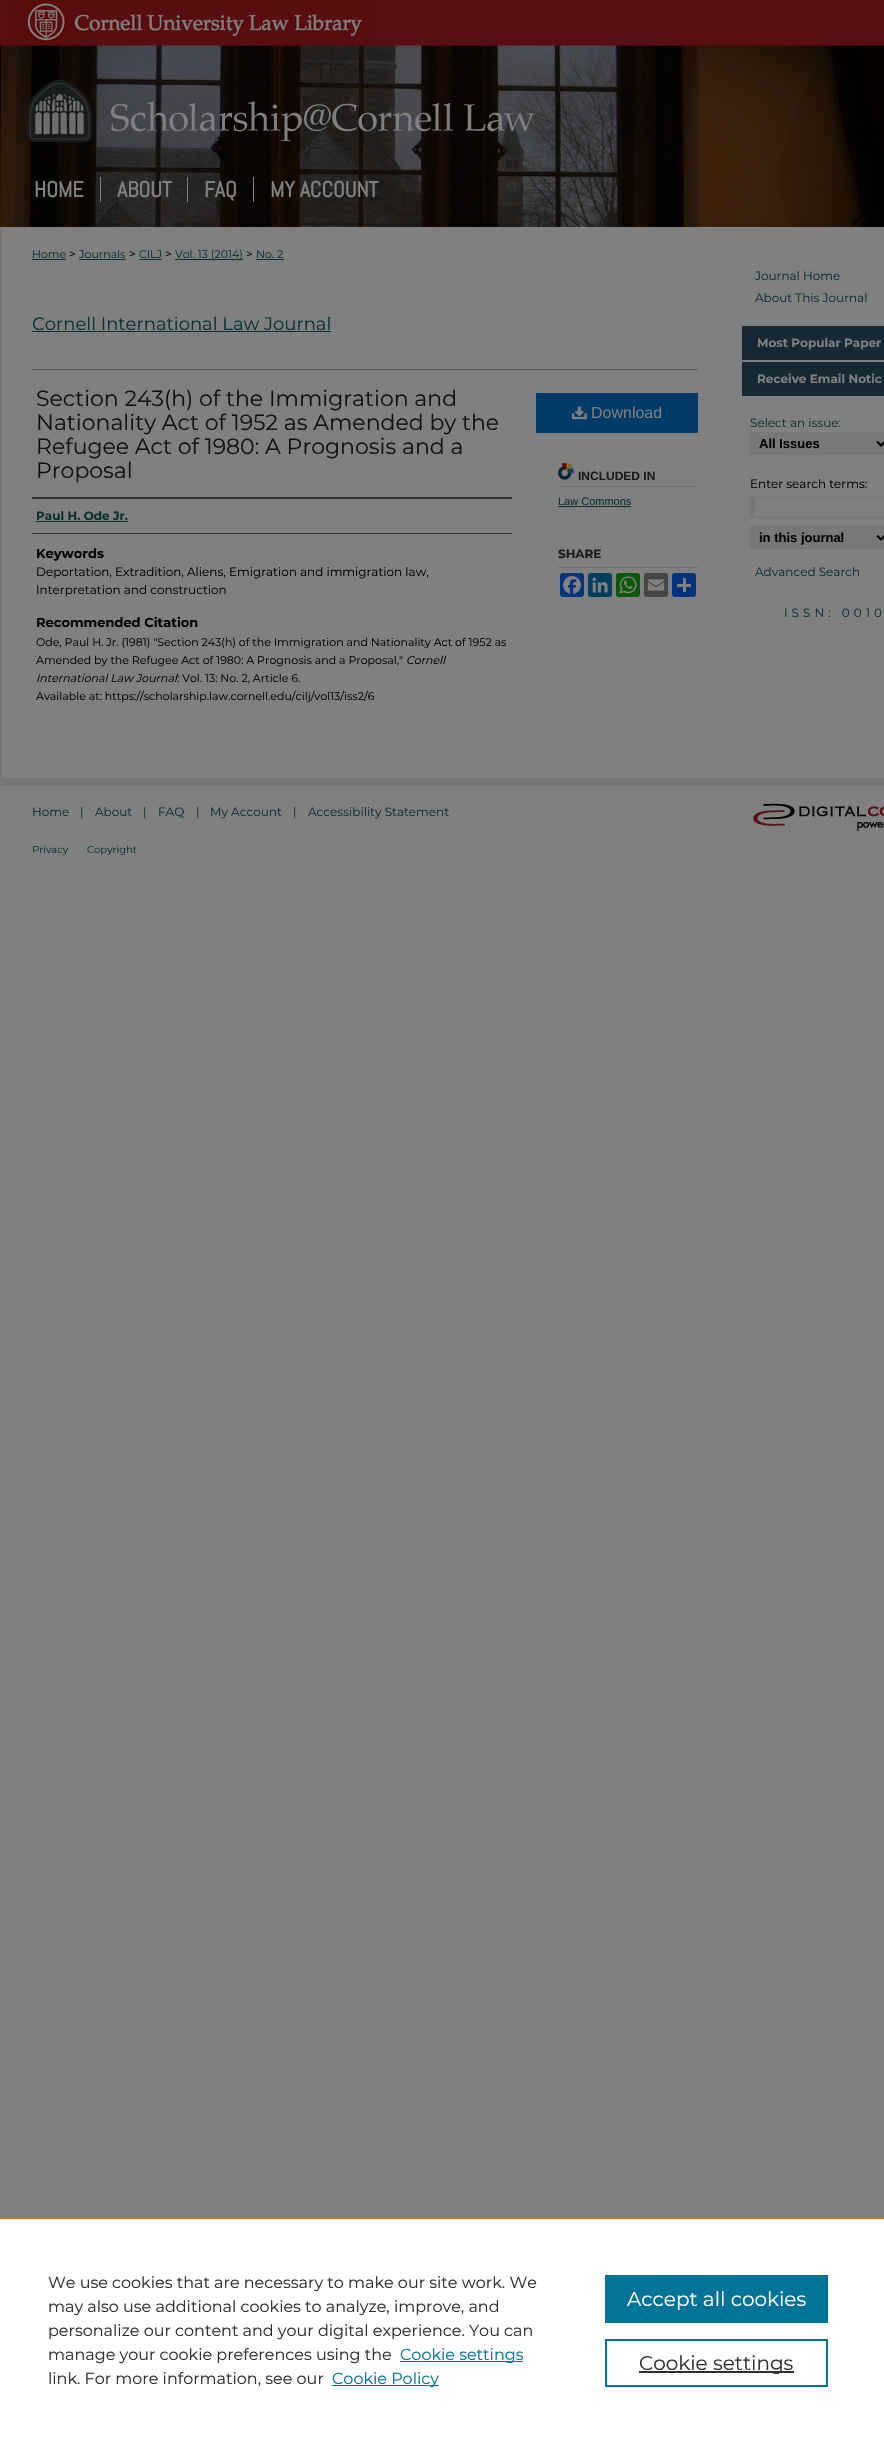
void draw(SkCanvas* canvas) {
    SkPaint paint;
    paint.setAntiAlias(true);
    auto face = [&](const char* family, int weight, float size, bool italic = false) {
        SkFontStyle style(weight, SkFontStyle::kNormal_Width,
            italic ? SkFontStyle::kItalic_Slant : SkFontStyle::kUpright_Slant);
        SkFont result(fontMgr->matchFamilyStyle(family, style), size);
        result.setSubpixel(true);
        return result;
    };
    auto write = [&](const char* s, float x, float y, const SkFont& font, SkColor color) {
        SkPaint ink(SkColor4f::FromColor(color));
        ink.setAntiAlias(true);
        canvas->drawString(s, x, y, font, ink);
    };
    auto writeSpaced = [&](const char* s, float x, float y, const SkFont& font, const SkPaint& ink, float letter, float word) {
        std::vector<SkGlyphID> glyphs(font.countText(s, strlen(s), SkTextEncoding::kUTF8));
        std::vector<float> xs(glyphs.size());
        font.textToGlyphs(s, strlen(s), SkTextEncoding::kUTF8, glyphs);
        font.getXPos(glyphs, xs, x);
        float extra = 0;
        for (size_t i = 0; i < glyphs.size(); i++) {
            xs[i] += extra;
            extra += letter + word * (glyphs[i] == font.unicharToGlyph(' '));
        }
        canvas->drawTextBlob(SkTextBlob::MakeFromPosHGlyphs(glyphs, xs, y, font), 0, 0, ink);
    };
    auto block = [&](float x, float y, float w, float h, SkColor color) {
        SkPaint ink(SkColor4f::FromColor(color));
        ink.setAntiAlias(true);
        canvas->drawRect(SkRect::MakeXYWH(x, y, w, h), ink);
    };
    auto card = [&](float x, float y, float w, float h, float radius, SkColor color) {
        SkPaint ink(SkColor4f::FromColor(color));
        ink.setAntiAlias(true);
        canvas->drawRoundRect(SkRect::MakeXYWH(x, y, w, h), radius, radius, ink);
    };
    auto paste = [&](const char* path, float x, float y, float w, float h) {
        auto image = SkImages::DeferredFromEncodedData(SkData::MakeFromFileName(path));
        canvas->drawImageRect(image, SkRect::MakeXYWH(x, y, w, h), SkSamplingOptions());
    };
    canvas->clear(SkColorSetRGB(128, 128, 128));
    block(0, 0, 884, 45, SkColorSetRGB(89, 15, 17));
    paste("pic1.png", 14, 0, 359, 45);
    paste("pic2.png", 0, 45, 884, 132);
    paste("pic3.png", 0, 177, 884, 50);
    block(100, 177, 1, 25, SkColorSetRGB(128, 128, 128));
    auto kFont1 = face("Abel", 700, 22);
    write("HOME", 34, 197, kFont1, SkColorSetRGB(128, 128, 128));
    block(187, 177, 1, 25, SkColorSetRGB(128, 128, 128));
    write("ABOUT", 117, 197, kFont1, SkColorSetRGB(128, 128, 128));
    block(253, 177, 1, 25, SkColorSetRGB(128, 128, 128));
    write("FAQ", 204, 197, kFont1, SkColorSetRGB(128, 128, 128));
    write("MY ACCOUNT", 270, 197, kFont1, SkColorSetRGB(128, 128, 128));
    paste("pic4.png", 0, 227, 2, 551);
    auto kFont2 = face("Montserrat", 400, 11);
    write("Home", 32, 258, kFont2, SkColorSetRGB(7, 49, 49));
    block(32, 259, 34, 1, SkColorSetRGB(7, 49, 49));
    auto kFont3 = face("Montserrat", 400, 12);
    write(">", 69, 258, kFont3, SK_ColorBLACK);
    write("Journals", 79, 258, kFont2, SkColorSetRGB(7, 49, 49));
    block(79, 259, 47, 1, SkColorSetRGB(7, 49, 49));
    write(">", 129, 258, kFont3, SK_ColorBLACK);
    write("CILJ", 139, 258, kFont2, SkColorSetRGB(7, 49, 49));
    block(139, 259, 23, 1, SkColorSetRGB(7, 49, 49));
    write(">", 165, 258, kFont3, SK_ColorBLACK);
    block(175, 259, 68, 1, SkColorSetRGB(7, 49, 49));
    write("Vol. 13 (2014)", 175, 258, kFont2, SkColorSetRGB(7, 49, 49));
    write(">", 246, 258, kFont3, SK_ColorBLACK);
    write("No. 2", 256, 258, kFont2, SkColorSetRGB(7, 49, 49));
    block(256, 259, 28, 1, SkColorSetRGB(7, 49, 49));
    auto kFont4 = face("Montserrat", 400, 18);
    write("Cornell International Law Journal", 32, 330, kFont4, SkColorSetRGB(7, 49, 49));
    block(32, 331, 299, 1, SkColorSetRGB(7, 49, 49));
    block(32, 369, 666, 1, SkColorSetRGB(85, 85, 85));
    auto kFont5 = face("Montserrat", 400, 22);
    write("Section 243(h) of the Immigration and", 36, 406, kFont5, SkColorSetRGB(17, 17, 17));
    write("Nationality Act of 1952 as Amended by the", 36, 430, kFont5, SkColorSetRGB(17, 17, 17));
    write("Refugee Act of 1980: A Prognosis and a", 36, 454, kFont5, SkColorSetRGB(17, 17, 17));
    write("Proposal", 36, 478, kFont5, SkColorSetRGB(17, 17, 17));
    block(32, 497, 480, 2, SkColorSetRGB(51, 51, 51));
    block(32, 533, 480, 1, SkColorSetRGB(51, 51, 51));
    auto kFont6 = face("Montserrat", 700, 12);
    write("Paul H. Ode Jr.", 36, 520, kFont6, SkColorSetRGB(7, 49, 49));
    block(36, 521, 92, 1, SkColorSetRGB(7, 49, 49));
    auto kFont7 = face("Montserrat", 700, 13);
    write("Keywords", 36, 558, kFont7, SK_ColorBLACK);
    write("Deportation, Extradition, Aliens, Emigration and immigration law,", 36, 576, kFont3, SK_ColorBLACK);
    write("Interpretation and construction", 36, 594, kFont3, SK_ColorBLACK);
    write("Recommended Citation", 36, 627, kFont7, SK_ColorBLACK);
    write("Ode, Paul H. Jr. (1981) \"Section 243(h) of the Immigration and Nationality Act of 1952 as", 36, 646, kFont2, SK_ColorBLACK);
    write("Amended by the Refugee Act of 1980: A Prognosis and a Proposal,\"", 36, 664, kFont2, SK_ColorBLACK);
    auto kFont8 = face("Montserrat", 400, 11, true);
    write("Cornell", 406, 664, kFont8, SK_ColorBLACK);
    write("International Law Journal", 36, 682, kFont8, SK_ColorBLACK);
    write(": Vol. 13: No. 2, Article 6.", 177, 682, kFont2, SK_ColorBLACK);
    write("Available at: https://scholarship.law.cornell.edu/cilj/vol13/iss2/6", 36, 700, kFont2, SK_ColorBLACK);
    block(536, 393, 162, 40, SkColorSetRGB(0, 58, 102));
    paste("pic5.png", 572, 406, 15, 14);
    auto kFont9 = face("Liberation Sans", 400, 16);
    write("Download", 591, 418, kFont9, SkColorSetRGB(128, 128, 128));
    paste("pic6.png", 558, 463, 16, 17);
    block(558, 486, 140, 1, SkColorSetRGB(111, 111, 111));
    auto kFont10 = face("Liberation Sans", 700, 12);
    write("INCLUDED IN", 578, 480, kFont10, SkColorSetRGB(26, 26, 26));
    auto kFont11 = face("Liberation Sans", 400, 11);
    write("Law Commons", 558, 505, kFont11, SkColorSetRGB(7, 49, 49));
    block(558, 506, 73, 1, SkColorSetRGB(7, 49, 49));
    block(558, 567, 140, 1, SkColorSetRGB(111, 111, 111));
    write("SHARE", 558, 558, kFont6, SkColorSetRGB(26, 26, 26));
    card(560, 573, 24, 24, 3, SkColorSetRGB(4, 51, 128));
    paste("pic7.png", 563, 576, 18, 18);
    card(588, 573, 24, 24, 3, SkColorSetRGB(0, 62, 91));
    paste("pic8.png", 592, 577, 16, 16);
    card(616, 573, 24, 24, 3, SkColorSetRGB(9, 88, 5));
    paste("pic9.png", 619, 576, 18, 18);
    card(644, 573, 24, 24, 3, SkColorSetRGB(68, 69, 72));
    paste("pic10.png", 647, 579, 18, 12);
    card(672, 573, 24, 24, 3, SkColorSetRGB(1, 51, 128));
    block(683, 578, 3, 14, SkColorSetRGB(128, 128, 128));
    block(677, 584, 14, 3, SkColorSetRGB(128, 128, 128));
    write("Journal Home", 755, 280, kFont3, SkColorSetRGB(7, 49, 49));
    write("About This Journal", 755, 302, kFont3, SkColorSetRGB(7, 49, 49));
    block(742, 326, 142, 34, SkColorSetRGB(21, 41, 53));
    write("Most Popular Paper", 757, 347, kFont6, SkColorSetRGB(128, 128, 128));
    block(742, 362, 142, 34, SkColorSetRGB(21, 41, 53));
    write("Receive Email Notic", 757, 383, kFont6, SkColorSetRGB(128, 128, 128));
    write("Select an issue:", 750, 427, kFont3, SkColorSetRGB(7, 49, 49));
    block(755, 433, 129, 21, SkColorSetRGB(120, 120, 120));
    block(750, 432, 134, 1, SkColorSetRGB(118, 118, 118));
    block(750, 454, 134, 1, SkColorSetRGB(118, 118, 118));
    block(750, 432, 5, 23, SkColorSetRGB(118, 118, 118));
    paint.setStyle(SkPaint::kStroke_Style);
    paint.setStrokeWidth(2);
    paint.setColor(SK_ColorBLACK);
    canvas->drawPath(SkPathBuilder().moveTo(877, 441.5f).lineTo(881, 445.5f).lineTo(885, 441.5f).detach(), paint);
    auto kFont12 = face("Liberation Sans", 700, 13);
    write("All Issues", 759, 448, kFont12, SK_ColorBLACK);
    write("Enter search terms:", 750, 488, kFont3, SK_ColorBLACK);
    block(750, 497, 134, 1, SkColorSetRGB(118, 118, 118));
    block(750, 517, 134, 1, SkColorSetRGB(118, 118, 118));
    block(750, 497, 5, 21, SkColorSetRGB(118, 118, 118));
    block(755, 527, 129, 21, SkColorSetRGB(120, 120, 120));
    block(750, 526, 134, 1, SkColorSetRGB(118, 118, 118));
    block(750, 548, 134, 1, SkColorSetRGB(118, 118, 118));
    block(750, 526, 5, 23, SkColorSetRGB(118, 118, 118));
    canvas->drawPath(SkPathBuilder().moveTo(877, 535.5f).lineTo(881, 539.5f).lineTo(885, 535.5f).detach(), paint);
    write("in this journal", 759, 542, kFont12, SK_ColorBLACK);
    write("Advanced Search", 755, 576, kFont3, SkColorSetRGB(7, 49, 49));
    paint.setStyle(SkPaint::kFill_Style);
    paint.setColor(SkColorSetRGB(7, 49, 49));
    writeSpaced("ISSN: 0010", 784, 617, kFont3, paint, 4, 0);
    block(0, 778, 884, 8, SkColorSetRGB(118, 118, 118));
    write("Home", 32, 816, kFont3, SkColorSetRGB(7, 49, 49));
    write("|", 80, 816, kFont3, SkColorSetRGB(7, 49, 49));
    write("About", 95, 816, kFont3, SkColorSetRGB(7, 49, 49));
    write("|", 143, 816, kFont3, SkColorSetRGB(7, 49, 49));
    write("FAQ", 158, 816, kFont3, SkColorSetRGB(7, 49, 49));
    write("|", 196, 816, kFont3, SkColorSetRGB(7, 49, 49));
    write("My Account", 210, 816, kFont3, SkColorSetRGB(7, 49, 49));
    write("|", 293, 816, kFont3, SkColorSetRGB(7, 49, 49));
    write("Accessibility Statement", 308, 816, kFont3, SkColorSetRGB(7, 49, 49));
    paste("pic11.png", 753, 803, 131, 28);
    auto kFont13 = face("Montserrat", 400, 10);
    write("Privacy", 32, 853, kFont13, SkColorSetRGB(7, 49, 49));
    write("Copyright", 87, 853, kFont13, SkColorSetRGB(7, 49, 49));
    block(0, 2219, 884, 224, SK_ColorWHITE);
    block(0, 2217, 884, 2, SkColorSetRGB(235, 101, 0));
    auto kFont14 = face("Montserrat", 400, 16);
    write("We use cookies that are necessary to make our site work. We", 48, 2288, kFont14, SkColorSetRGB(46, 46, 46));
    write("may also use additional cookies to analyze, improve, and", 48, 2312, kFont14, SkColorSetRGB(46, 46, 46));
    write("personalize our content and your digital experience. You can", 48, 2336, kFont14, SkColorSetRGB(46, 46, 46));
    write("manage your cookie preferences using the", 48, 2360, kFont14, SkColorSetRGB(46, 46, 46));
    block(400, 2361, 123, 1, SkColorSetRGB(0, 115, 152));
    write("Cookie settings", 400, 2360, kFont14, SkColorSetRGB(0, 115, 152));
    write("link. For more information, see our", 48, 2384, kFont14, SkColorSetRGB(46, 46, 46));
    block(332, 2385, 107, 1, SkColorSetRGB(0, 115, 152));
    write("Cookie Policy", 332, 2384, kFont14, SkColorSetRGB(0, 115, 152));
    block(605, 2275, 223, 48, SkColorSetRGB(0, 115, 152));
    auto kFont15 = face("Montserrat", 400, 20);
    write("Accept all cookies", 627, 2306, kFont15, SK_ColorWHITE);
    paint.setStyle(SkPaint::kStroke_Style);
    paint.setColor(SkColorSetRGB(0, 115, 152));
    canvas->drawRect(SkRect::MakeXYWH(606, 2340, 221, 46), paint);
    block(639, 2371, 155, 2, SkColorSetRGB(46, 46, 46));
    write("Cookie settings", 639, 2370, kFont15, SkColorSetRGB(46, 46, 46));
}
